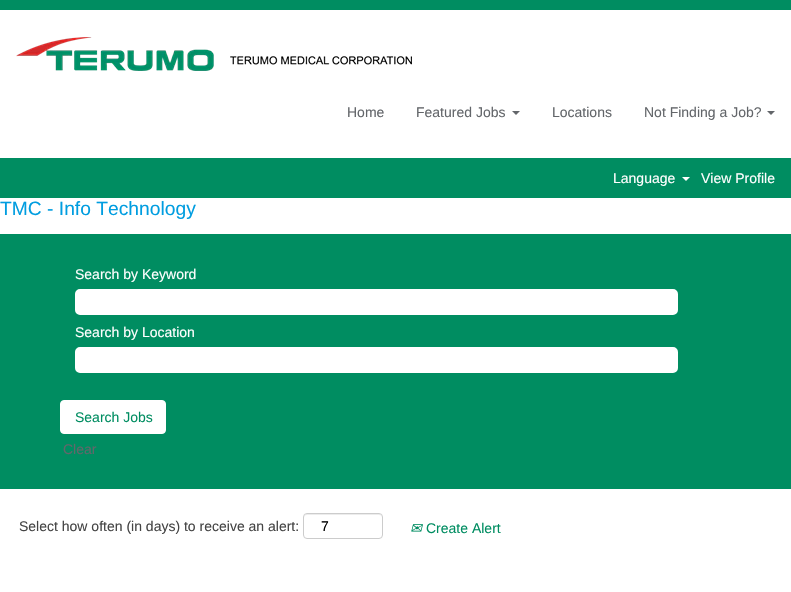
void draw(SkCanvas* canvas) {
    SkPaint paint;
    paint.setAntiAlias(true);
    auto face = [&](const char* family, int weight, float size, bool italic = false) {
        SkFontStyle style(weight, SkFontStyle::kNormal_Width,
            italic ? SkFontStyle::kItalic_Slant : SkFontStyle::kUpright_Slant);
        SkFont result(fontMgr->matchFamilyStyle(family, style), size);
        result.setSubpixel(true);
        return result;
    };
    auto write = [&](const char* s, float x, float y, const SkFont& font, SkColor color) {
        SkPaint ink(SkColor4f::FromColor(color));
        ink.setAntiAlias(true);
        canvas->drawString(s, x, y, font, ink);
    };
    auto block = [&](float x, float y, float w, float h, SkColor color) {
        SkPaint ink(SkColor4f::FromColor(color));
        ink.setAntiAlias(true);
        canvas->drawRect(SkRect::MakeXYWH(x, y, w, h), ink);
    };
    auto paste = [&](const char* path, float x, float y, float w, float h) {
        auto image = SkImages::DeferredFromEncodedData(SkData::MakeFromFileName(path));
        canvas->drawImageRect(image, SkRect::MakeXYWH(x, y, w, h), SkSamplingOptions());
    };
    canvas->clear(SK_ColorWHITE);
    block(0, 0, 791, 10, SkColorSetRGB(0, 141, 97));
    paste("pic1.png", 16, 37, 396, 34);
    auto kFont1 = face("Liberation Sans", 400, 14);
    write("Home", 347, 117, kFont1, SkColorSetRGB(99, 102, 106));
    write("Featured Jobs", 416, 117, kFont1, SkColorSetRGB(99, 102, 106));
    paint.setColor(SkColorSetRGB(99, 102, 106));
    canvas->drawPath(SkPathBuilder().moveTo(512, 111).lineTo(520, 111).lineTo(516, 115).close().detach(), paint);
    write("Locations", 552, 117, kFont1, SkColorSetRGB(99, 102, 106));
    write("Not Finding a Job?", 644, 117, kFont1, SkColorSetRGB(99, 102, 106));
    canvas->drawPath(SkPathBuilder().moveTo(767, 111).lineTo(775, 111).lineTo(771, 115).close().detach(), paint);
    block(0, 158, 791, 40, SkColorSetRGB(0, 141, 97));
    write("Language", 613, 183, kFont1, SK_ColorWHITE);
    paint.setColor(SK_ColorWHITE);
    canvas->drawPath(SkPathBuilder().moveTo(682, 177).lineTo(690, 177).lineTo(686, 181).close().detach(), paint);
    write("View Profile", 701, 183, kFont1, SK_ColorWHITE);
    auto kFont2 = face("Liberation Sans", 400, 19.25f);
    write("TMC - Info Technology", 0, 215, kFont2, SkColorSetRGB(0, 157, 224));
    block(0, 234, 791, 255, SkColorSetRGB(0, 141, 97));
    write("Search by Keyword", 75, 279, kFont1, SK_ColorWHITE);
    canvas->drawRoundRect(SkRect::MakeXYWH(76, 290, 601, 24), 4, 4, paint);
    paint.setStyle(SkPaint::kStroke_Style);
    paint.setStrokeWidth(2);
    canvas->drawRoundRect(SkRect::MakeXYWH(76, 290, 601, 24), 4, 4, paint);
    write("Search by Location", 75, 337, kFont1, SK_ColorWHITE);
    paint.setStyle(SkPaint::kFill_Style);
    canvas->drawRoundRect(SkRect::MakeXYWH(76, 348, 601, 24), 4, 4, paint);
    paint.setStyle(SkPaint::kStroke_Style);
    canvas->drawRoundRect(SkRect::MakeXYWH(76, 348, 601, 24), 4, 4, paint);
    paint.setStyle(SkPaint::kFill_Style);
    canvas->drawRoundRect(SkRect::MakeXYWH(60.5f, 400.5f, 105, 33), 3.5f, 3.5f, paint);
    paint.setStyle(SkPaint::kStroke_Style);
    paint.setStrokeWidth(1);
    canvas->drawRoundRect(SkRect::MakeXYWH(60.5f, 400.5f, 105, 33), 3.5f, 3.5f, paint);
    write("Search Jobs", 75, 422, kFont1, SkColorSetRGB(0, 141, 97));
    write("Clear", 63, 454, kFont1, SkColorSetRGB(99, 102, 106));
    write("Select how often (in days) to receive an alert:", 19, 531, kFont1, SkColorSetRGB(68, 68, 68));
    paint.setStyle(SkPaint::kFill_Style);
    paint.setColor(SkColorSetRGB(236, 236, 236));
    canvas->drawPath(SkPathBuilder().moveTo(307, 515).lineTo(379, 515).cubicTo(381, 515, 382, 516, 382, 518).cubicTo(382, 511, 371, 514, 367, 514).lineTo(319, 514).cubicTo(315, 514, 304, 511, 304, 518).cubicTo(304, 516, 305, 515, 307, 515).close().detach(), paint);
    paint.setStyle(SkPaint::kStroke_Style);
    paint.setColor(SkColorSetRGB(204, 204, 204));
    canvas->drawRoundRect(SkRect::MakeXYWH(303.5f, 513.5f, 79, 25), 3.5f, 3.5f, paint);
    write("7", 321, 531, kFont1, SK_ColorBLACK);
    auto kFont3 = face("DejaVu Sans", 400, 14, true);
    write("✉", 410, 533, kFont3, SkColorSetRGB(0, 141, 97));
    write("Create Alert", 426, 533, kFont1, SkColorSetRGB(0, 141, 97));
}
